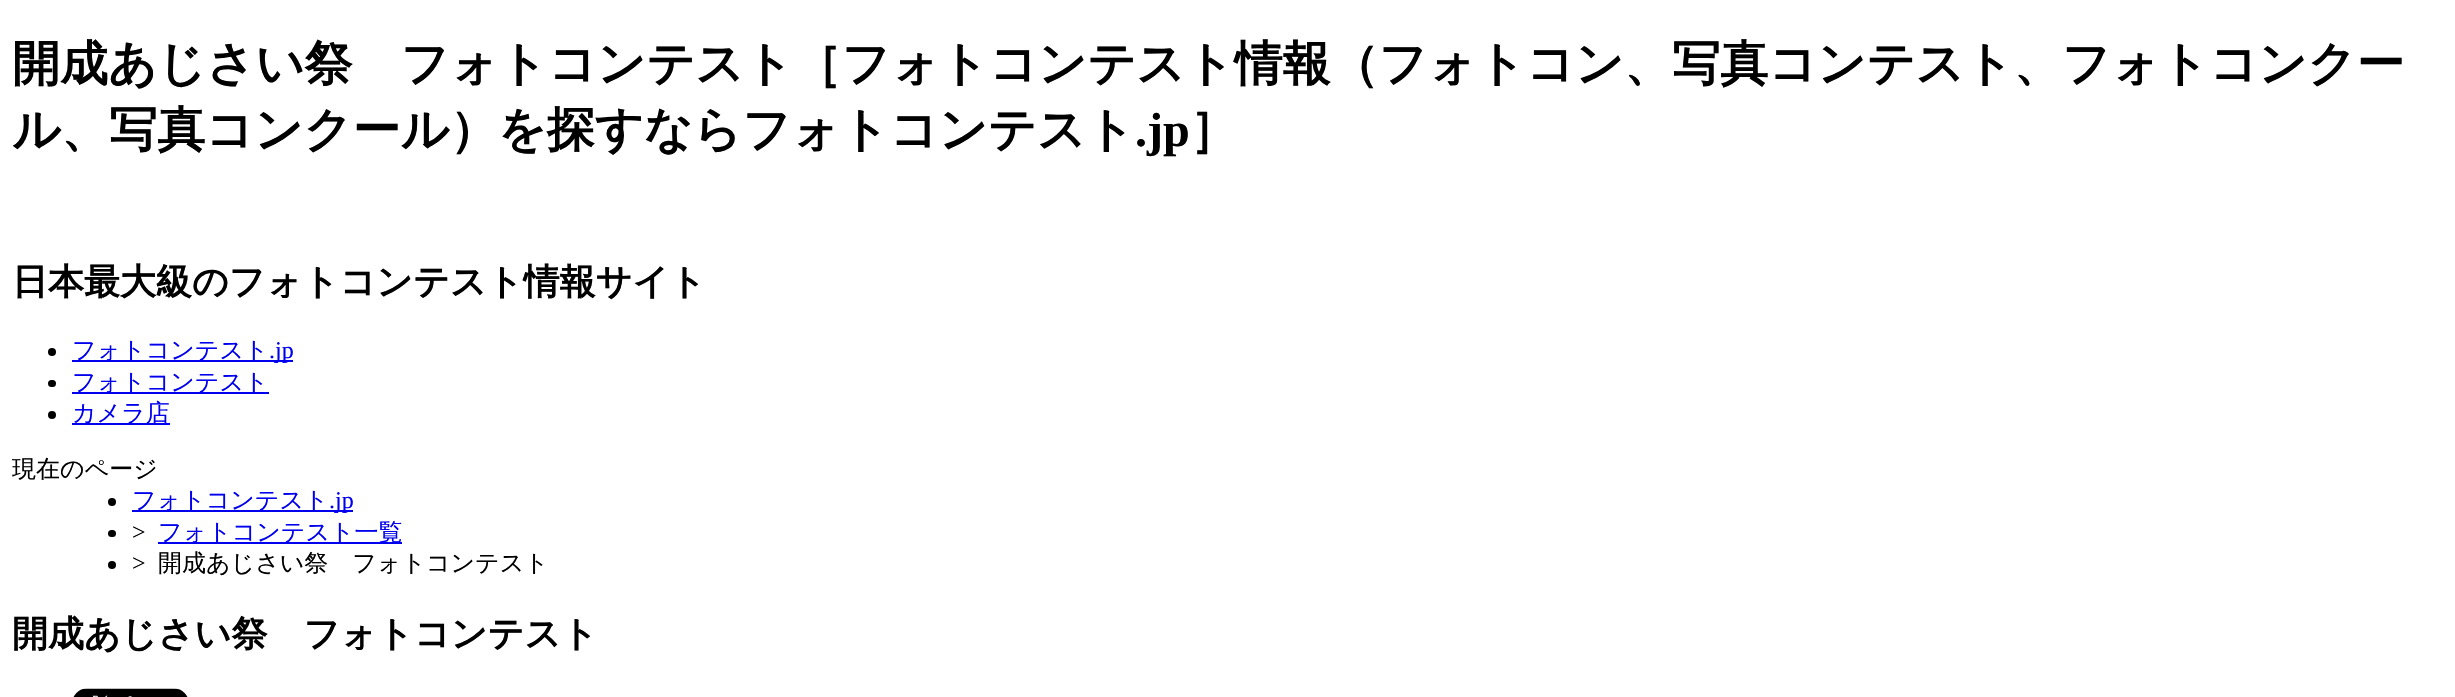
void draw(SkCanvas* canvas) {
    SkPaint paint;
    paint.setAntiAlias(true);
    auto face = [&](const char* family, int weight, float size, bool italic = false) {
        SkFontStyle style(weight, SkFontStyle::kNormal_Width,
            italic ? SkFontStyle::kItalic_Slant : SkFontStyle::kUpright_Slant);
        SkFont result(fontMgr->matchFamilyStyle(family, style), size);
        result.setSubpixel(true);
        return result;
    };
    auto write = [&](const char* s, float x, float y, const SkFont& font, SkColor color) {
        SkPaint ink(SkColor4f::FromColor(color));
        ink.setAntiAlias(true);
        canvas->drawString(s, x, y, font, ink);
    };
    auto block = [&](float x, float y, float w, float h, SkColor color) {
        SkPaint ink(SkColor4f::FromColor(color));
        ink.setAntiAlias(true);
        canvas->drawRect(SkRect::MakeXYWH(x, y, w, h), ink);
    };
    auto card = [&](float x, float y, float w, float h, float radius, SkColor color) {
        SkPaint ink(SkColor4f::FromColor(color));
        ink.setAntiAlias(true);
        canvas->drawRoundRect(SkRect::MakeXYWH(x, y, w, h), radius, radius, ink);
    };
    auto paste = [&](const char* path, float x, float y, float w, float h) {
        auto image = SkImages::DeferredFromEncodedData(SkData::MakeFromFileName(path));
        canvas->drawImageRect(image, SkRect::MakeXYWH(x, y, w, h), SkSamplingOptions());
    };
    canvas->clear(SK_ColorWHITE);
    auto kFont1 = face("WenQuanYi Zen Hei", 700, 48);
    write("開成あじさい祭　フォトコンテスト［フォトコンテスト情報（フォトコン、写真コンテスト、フォトコンクー", 12, 80, kFont1, SK_ColorBLACK);
    write("ル、写真コンクール）を探すならフォトコンテスト", 12, 146, kFont1, SK_ColorBLACK);
    auto kFont2 = face("Liberation Serif", 700, 48);
    write(".jp", 1135, 146, kFont2, SK_ColorBLACK);
    write("］", 1190, 146, kFont1, SK_ColorBLACK);
    auto kFont3 = face("WenQuanYi Zen Hei", 700, 36);
    write("日本最大級のフォトコンテスト情報サイト", 12, 294, kFont3, SK_ColorBLACK);
    paint.setColor(SK_ColorBLACK);
    canvas->drawCircle(52, 352, 4, paint);
    block(72, 360, 221, 2, SkColorSetRGB(0, 0, 238));
    auto kFont4 = face("WenQuanYi Zen Hei", 500, 24);
    write("フォトコンテスト", 72, 358, kFont4, SkColorSetRGB(0, 0, 238));
    auto kFont5 = face("Liberation Serif", 400, 24);
    write(".jp", 269, 358, kFont5, SkColorSetRGB(0, 0, 238));
    card(48, 380, 8, 7, 3.5f, SK_ColorBLACK);
    block(72, 392, 197, 2, SkColorSetRGB(0, 0, 238));
    write("フォトコンテスト", 72, 390, kFont4, SkColorSetRGB(0, 0, 238));
    canvas->drawCircle(52, 415, 4, paint);
    block(72, 423, 98, 2, SkColorSetRGB(0, 0, 238));
    write("カメラ店", 72, 421, kFont4, SkColorSetRGB(0, 0, 238));
    write("現在のページ", 12, 477, kFont4, SK_ColorBLACK);
    canvas->drawCircle(112, 502, 4, paint);
    block(132, 510, 221, 2, SkColorSetRGB(0, 0, 238));
    write("フォトコンテスト", 132, 508, kFont4, SkColorSetRGB(0, 0, 238));
    write(".jp", 329, 508, kFont5, SkColorSetRGB(0, 0, 238));
    card(108, 530, 8, 7, 3.5f, SK_ColorBLACK);
    write(">", 132, 540, kFont5, SK_ColorBLACK);
    block(158, 542, 244, 2, SkColorSetRGB(0, 0, 238));
    write("フォトコンテスト一覧", 158, 540, kFont4, SkColorSetRGB(0, 0, 238));
    canvas->drawCircle(112, 565, 4, paint);
    write(">", 132, 571, kFont5, SK_ColorBLACK);
    write("開成あじさい祭　フォトコンテスト", 158, 571, kFont4, SK_ColorBLACK);
    write("開成あじさい祭　フォトコンテスト", 12, 646, kFont3, SK_ColorBLACK);
    paste("pic1.png", 73, 688, 115, 9);
}
